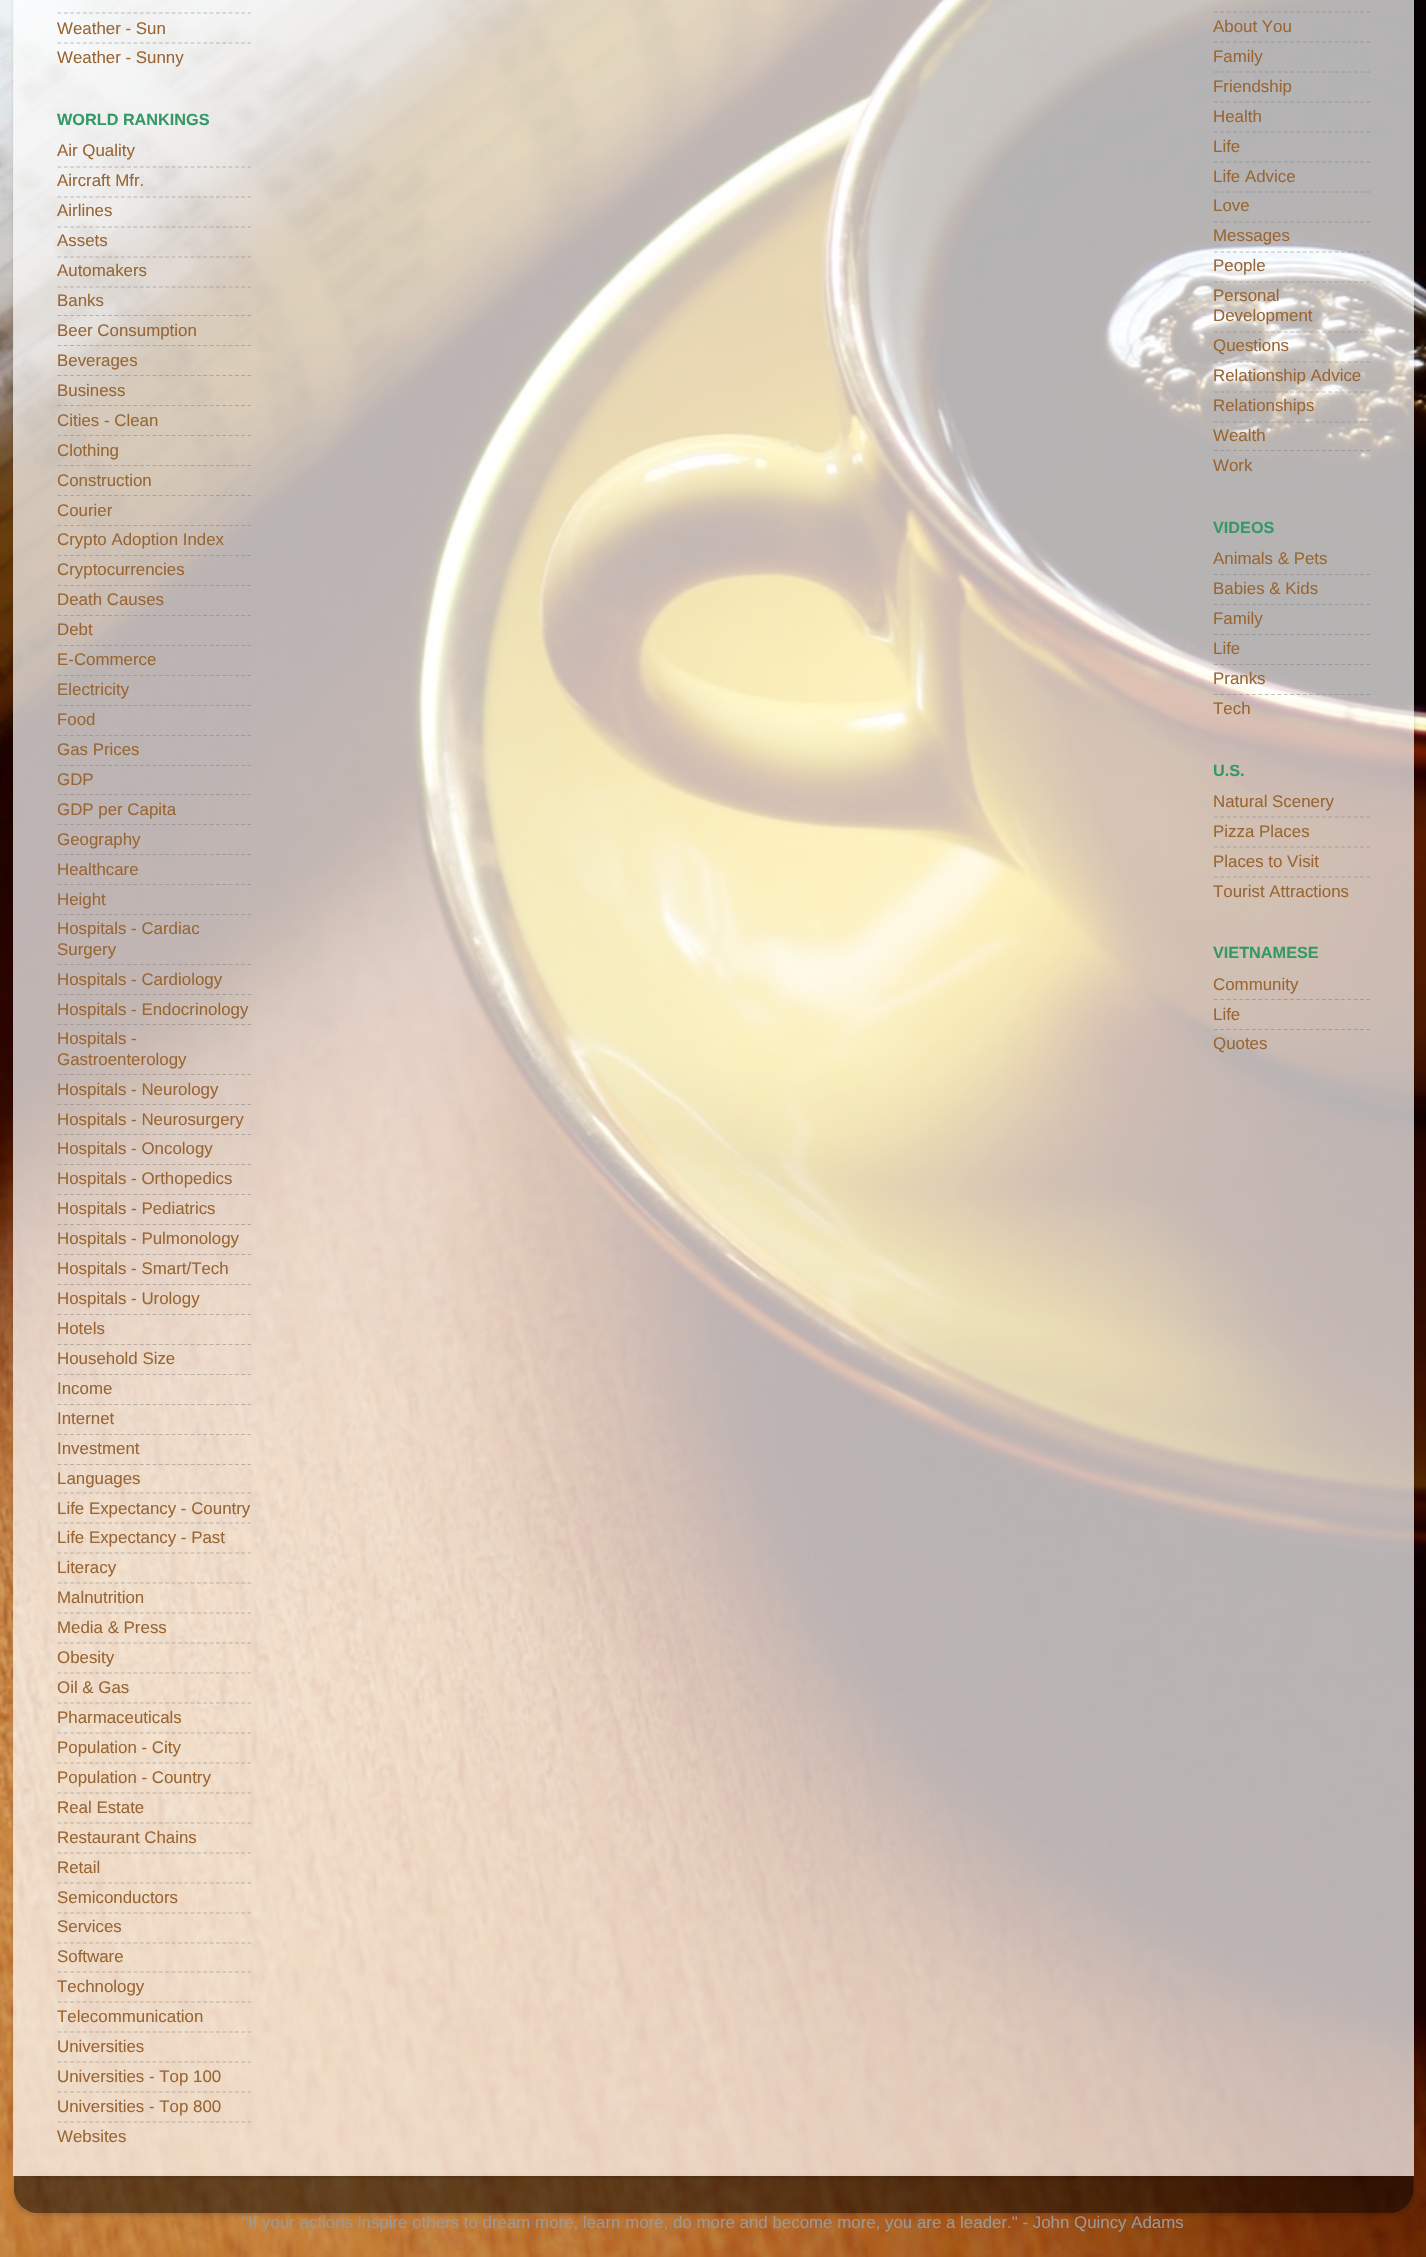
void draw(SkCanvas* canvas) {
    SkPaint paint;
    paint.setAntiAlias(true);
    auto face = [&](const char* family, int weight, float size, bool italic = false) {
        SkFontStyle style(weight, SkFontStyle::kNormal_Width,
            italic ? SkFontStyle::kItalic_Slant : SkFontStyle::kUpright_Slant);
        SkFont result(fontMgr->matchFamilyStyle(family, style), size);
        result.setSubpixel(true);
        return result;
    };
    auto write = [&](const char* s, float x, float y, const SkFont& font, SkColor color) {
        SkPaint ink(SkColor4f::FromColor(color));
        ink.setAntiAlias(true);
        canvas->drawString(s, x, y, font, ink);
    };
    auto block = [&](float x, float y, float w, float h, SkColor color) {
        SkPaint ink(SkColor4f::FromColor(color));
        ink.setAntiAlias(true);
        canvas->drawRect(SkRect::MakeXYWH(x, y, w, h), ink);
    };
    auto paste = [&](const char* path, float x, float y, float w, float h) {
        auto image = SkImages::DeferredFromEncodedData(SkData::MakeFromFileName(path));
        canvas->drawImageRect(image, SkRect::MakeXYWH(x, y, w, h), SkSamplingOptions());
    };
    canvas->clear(SK_ColorWHITE);
    paste("pic1.png", 0, 0, 1426, 2257);
    canvas->save();
    canvas->clipPath(SkPathBuilder(SkPathFillType::kEvenOdd).moveTo(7, 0).lineTo(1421, 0).lineTo(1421, 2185).lineTo(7, 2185).close().moveTo(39, -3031).lineTo(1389, -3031).cubicTo(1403, -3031, 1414, -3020, 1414, -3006).lineTo(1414, 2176).lineTo(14, 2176).lineTo(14, -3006).cubicTo(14, -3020, 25, -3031, 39, -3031).close().detach(), true);
    paint.setColor(SkColorSetARGB(38, 0, 0, 0));
    paint.setMaskFilter(SkMaskFilter::MakeBlur(kNormal_SkBlurStyle, 2));
    canvas->drawRoundRect(SkRect::MakeXYWH(14, -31, 1400, 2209), 25, 25, paint);
    paint.setMaskFilter(nullptr);
    canvas->restore();
    block(13, 0, 1401, 2176, SkColorSetARGB(179, 255, 255, 255));
    paint.setStyle(SkPaint::kStroke_Style);
    paint.setStrokeWidth(1.2f);
    paint.setColor(SkColorSetARGB(128, 128, 128, 128));
    paint.setPathEffect(SkDashPathEffect::Make({{3.75f, 2.59f}}, 0));
    canvas->drawPath(SkPathBuilder().moveTo(57.5f, 13).lineTo(251, 13).detach(), paint);
    paint.setPathEffect(nullptr);
    auto kFont1 = face("Liberation Sans", 400, 16.88f);
    write("Weather - Sun", 57, 34, kFont1, SkColorSetRGB(153, 102, 51));
    paint.setPathEffect(SkDashPathEffect::Make({{3.75f, 2.59f}}, 0));
    canvas->drawPath(SkPathBuilder().moveTo(57.5f, 43).lineTo(251, 43).detach(), paint);
    paint.setPathEffect(nullptr);
    write("Weather - Sunny", 57, 63, kFont1, SkColorSetRGB(153, 102, 51));
    auto kFont2 = face("Liberation Sans", 700, 16.25f);
    write("WORLD RANKINGS", 57, 125, kFont2, SkColorSetRGB(51, 153, 102));
    write("Air Quality", 57, 156, kFont1, SkColorSetRGB(153, 102, 51));
    paint.setPathEffect(SkDashPathEffect::Make({{3.75f, 2.59f}}, 0));
    canvas->drawPath(SkPathBuilder().moveTo(57.5f, 167).lineTo(251, 167).detach(), paint);
    paint.setPathEffect(nullptr);
    write("Aircraft Mfr.", 57, 186, kFont1, SkColorSetRGB(153, 102, 51));
    paint.setPathEffect(SkDashPathEffect::Make({{3.75f, 2.59f}}, 0));
    canvas->drawPath(SkPathBuilder().moveTo(57.5f, 197).lineTo(251, 197).detach(), paint);
    paint.setPathEffect(nullptr);
    write("Airlines", 57, 216, kFont1, SkColorSetRGB(153, 102, 51));
    paint.setPathEffect(SkDashPathEffect::Make({{3.75f, 2.59f}}, 0));
    canvas->drawPath(SkPathBuilder().moveTo(57.5f, 227).lineTo(251, 227).detach(), paint);
    paint.setPathEffect(nullptr);
    write("Assets", 57, 246, kFont1, SkColorSetRGB(153, 102, 51));
    paint.setPathEffect(SkDashPathEffect::Make({{3.75f, 2.59f}}, 0));
    canvas->drawPath(SkPathBuilder().moveTo(57.5f, 257).lineTo(251, 257).detach(), paint);
    paint.setPathEffect(nullptr);
    write("Automakers", 57, 276, kFont1, SkColorSetRGB(153, 102, 51));
    paint.setPathEffect(SkDashPathEffect::Make({{3.75f, 2.59f}}, 0));
    canvas->drawPath(SkPathBuilder().moveTo(57.5f, 287).lineTo(251, 287).detach(), paint);
    paint.setPathEffect(nullptr);
    write("Banks", 57, 306, kFont1, SkColorSetRGB(153, 102, 51));
    paint.setPathEffect(SkDashPathEffect::Make({{3.75f, 2.59f}}, 0));
    canvas->drawPath(SkPathBuilder().moveTo(57.5f, 315.5f).lineTo(251, 315.5f).detach(), paint);
    paint.setPathEffect(nullptr);
    write("Beer Consumption", 57, 336, kFont1, SkColorSetRGB(153, 102, 51));
    paint.setPathEffect(SkDashPathEffect::Make({{3.75f, 2.59f}}, 0));
    canvas->drawPath(SkPathBuilder().moveTo(57.5f, 345.5f).lineTo(251, 345.5f).detach(), paint);
    paint.setPathEffect(nullptr);
    write("Beverages", 57, 366, kFont1, SkColorSetRGB(153, 102, 51));
    paint.setPathEffect(SkDashPathEffect::Make({{3.75f, 2.59f}}, 0));
    canvas->drawPath(SkPathBuilder().moveTo(57.5f, 375.5f).lineTo(251, 375.5f).detach(), paint);
    paint.setPathEffect(nullptr);
    write("Business", 57, 396, kFont1, SkColorSetRGB(153, 102, 51));
    paint.setPathEffect(SkDashPathEffect::Make({{3.75f, 2.59f}}, 0));
    canvas->drawPath(SkPathBuilder().moveTo(57.5f, 405.5f).lineTo(251, 405.5f).detach(), paint);
    paint.setPathEffect(nullptr);
    write("Cities - Clean", 57, 426, kFont1, SkColorSetRGB(153, 102, 51));
    paint.setPathEffect(SkDashPathEffect::Make({{3.75f, 2.59f}}, 0));
    canvas->drawPath(SkPathBuilder().moveTo(57.5f, 435.5f).lineTo(251, 435.5f).detach(), paint);
    paint.setPathEffect(nullptr);
    write("Clothing", 57, 456, kFont1, SkColorSetRGB(153, 102, 51));
    paint.setPathEffect(SkDashPathEffect::Make({{3.75f, 2.59f}}, 0));
    canvas->drawPath(SkPathBuilder().moveTo(57.5f, 465.5f).lineTo(251, 465.5f).detach(), paint);
    paint.setPathEffect(nullptr);
    write("Construction", 57, 486, kFont1, SkColorSetRGB(153, 102, 51));
    paint.setPathEffect(SkDashPathEffect::Make({{3.75f, 2.59f}}, 0));
    canvas->drawPath(SkPathBuilder().moveTo(57.5f, 495.5f).lineTo(251, 495.5f).detach(), paint);
    paint.setPathEffect(nullptr);
    write("Courier", 57, 516, kFont1, SkColorSetRGB(153, 102, 51));
    paint.setPathEffect(SkDashPathEffect::Make({{3.75f, 2.59f}}, 0));
    canvas->drawPath(SkPathBuilder().moveTo(57.5f, 525.5f).lineTo(251, 525.5f).detach(), paint);
    paint.setPathEffect(nullptr);
    write("Crypto Adoption Index", 57, 545, kFont1, SkColorSetRGB(153, 102, 51));
    paint.setPathEffect(SkDashPathEffect::Make({{3.75f, 2.59f}}, 0));
    canvas->drawPath(SkPathBuilder().moveTo(57.5f, 555.5f).lineTo(251, 555.5f).detach(), paint);
    paint.setPathEffect(nullptr);
    write("Cryptocurrencies", 57, 575, kFont1, SkColorSetRGB(153, 102, 51));
    paint.setPathEffect(SkDashPathEffect::Make({{3.75f, 2.59f}}, 0));
    canvas->drawPath(SkPathBuilder().moveTo(57.5f, 585.5f).lineTo(251, 585.5f).detach(), paint);
    paint.setPathEffect(nullptr);
    write("Death Causes", 57, 605, kFont1, SkColorSetRGB(153, 102, 51));
    paint.setPathEffect(SkDashPathEffect::Make({{3.75f, 2.59f}}, 0));
    canvas->drawPath(SkPathBuilder().moveTo(57.5f, 615.5f).lineTo(251, 615.5f).detach(), paint);
    paint.setPathEffect(nullptr);
    write("Debt", 57, 635, kFont1, SkColorSetRGB(153, 102, 51));
    paint.setPathEffect(SkDashPathEffect::Make({{3.75f, 2.59f}}, 0));
    canvas->drawPath(SkPathBuilder().moveTo(57.5f, 645.5f).lineTo(251, 645.5f).detach(), paint);
    paint.setPathEffect(nullptr);
    write("E-Commerce", 57, 665, kFont1, SkColorSetRGB(153, 102, 51));
    paint.setPathEffect(SkDashPathEffect::Make({{3.75f, 2.59f}}, 0));
    canvas->drawPath(SkPathBuilder().moveTo(57.5f, 675.5f).lineTo(251, 675.5f).detach(), paint);
    paint.setPathEffect(nullptr);
    write("Electricity", 57, 695, kFont1, SkColorSetRGB(153, 102, 51));
    paint.setColor(SkColorSetRGB(158, 154, 153));
    paint.setPathEffect(SkDashPathEffect::Make({{3.75f, 2.59f}}, 0));
    canvas->drawPath(SkPathBuilder().moveTo(57.5f, 705.5f).lineTo(251, 705.5f).detach(), paint);
    paint.setPathEffect(nullptr);
    write("Food", 57, 725, kFont1, SkColorSetRGB(153, 102, 51));
    paint.setPathEffect(SkDashPathEffect::Make({{3.75f, 2.59f}}, 0));
    canvas->drawPath(SkPathBuilder().moveTo(57.5f, 735.5f).lineTo(251, 735.5f).detach(), paint);
    paint.setPathEffect(nullptr);
    write("Gas Prices", 57, 755, kFont1, SkColorSetRGB(153, 102, 51));
    paint.setPathEffect(SkDashPathEffect::Make({{3.75f, 2.59f}}, 0));
    canvas->drawPath(SkPathBuilder().moveTo(57.5f, 765.5f).lineTo(251, 765.5f).detach(), paint);
    paint.setPathEffect(nullptr);
    write("GDP", 57, 785, kFont1, SkColorSetRGB(153, 102, 51));
    paint.setColor(SkColorSetARGB(128, 128, 128, 128));
    paint.setPathEffect(SkDashPathEffect::Make({{3.75f, 2.59f}}, 0));
    canvas->drawPath(SkPathBuilder().moveTo(57.5f, 794.5f).lineTo(251, 794.5f).detach(), paint);
    paint.setPathEffect(nullptr);
    write("GDP per Capita", 57, 815, kFont1, SkColorSetRGB(153, 102, 51));
    paint.setPathEffect(SkDashPathEffect::Make({{3.75f, 2.59f}}, 0));
    canvas->drawPath(SkPathBuilder().moveTo(57.5f, 824.5f).lineTo(251, 824.5f).detach(), paint);
    paint.setPathEffect(nullptr);
    write("Geography", 57, 845, kFont1, SkColorSetRGB(153, 102, 51));
    paint.setPathEffect(SkDashPathEffect::Make({{3.75f, 2.59f}}, 0));
    canvas->drawPath(SkPathBuilder().moveTo(57.5f, 854.5f).lineTo(251, 854.5f).detach(), paint);
    paint.setPathEffect(nullptr);
    write("Healthcare", 57, 875, kFont1, SkColorSetRGB(153, 102, 51));
    paint.setPathEffect(SkDashPathEffect::Make({{3.75f, 2.59f}}, 0));
    canvas->drawPath(SkPathBuilder().moveTo(57.5f, 884.5f).lineTo(251, 884.5f).detach(), paint);
    paint.setPathEffect(nullptr);
    write("Height", 57, 905, kFont1, SkColorSetRGB(153, 102, 51));
    paint.setPathEffect(SkDashPathEffect::Make({{3.75f, 2.59f}}, 0));
    canvas->drawPath(SkPathBuilder().moveTo(57.5f, 914.5f).lineTo(251, 914.5f).detach(), paint);
    paint.setPathEffect(nullptr);
    write("Hospitals - Cardiac", 57, 934, kFont1, SkColorSetRGB(153, 102, 51));
    write("Surgery", 57, 955, kFont1, SkColorSetRGB(153, 102, 51));
    paint.setPathEffect(SkDashPathEffect::Make({{3.75f, 2.59f}}, 0));
    canvas->drawPath(SkPathBuilder().moveTo(57.5f, 964.5f).lineTo(251, 964.5f).detach(), paint);
    paint.setPathEffect(nullptr);
    write("Hospitals - Cardiology", 57, 985, kFont1, SkColorSetRGB(153, 102, 51));
    paint.setPathEffect(SkDashPathEffect::Make({{3.75f, 2.59f}}, 0));
    canvas->drawPath(SkPathBuilder().moveTo(57.5f, 994.5f).lineTo(251, 994.5f).detach(), paint);
    paint.setPathEffect(nullptr);
    write("Hospitals - Endocrinology", 57, 1015, kFont1, SkColorSetRGB(153, 102, 51));
    paint.setPathEffect(SkDashPathEffect::Make({{3.75f, 2.59f}}, 0));
    canvas->drawPath(SkPathBuilder().moveTo(57.5f, 1024.5f).lineTo(251, 1024.5f).detach(), paint);
    paint.setPathEffect(nullptr);
    write("Hospitals -", 57, 1044, kFont1, SkColorSetRGB(153, 102, 51));
    write("Gastroenterology", 57, 1065, kFont1, SkColorSetRGB(153, 102, 51));
    paint.setPathEffect(SkDashPathEffect::Make({{3.75f, 2.59f}}, 0));
    canvas->drawPath(SkPathBuilder().moveTo(57.5f, 1074.5f).lineTo(251, 1074.5f).detach(), paint);
    paint.setPathEffect(nullptr);
    write("Hospitals - Neurology", 57, 1095, kFont1, SkColorSetRGB(153, 102, 51));
    paint.setPathEffect(SkDashPathEffect::Make({{3.75f, 2.59f}}, 0));
    canvas->drawPath(SkPathBuilder().moveTo(57.5f, 1104.5f).lineTo(251, 1104.5f).detach(), paint);
    paint.setPathEffect(nullptr);
    write("Hospitals - Neurosurgery", 57, 1125, kFont1, SkColorSetRGB(153, 102, 51));
    paint.setPathEffect(SkDashPathEffect::Make({{3.75f, 2.59f}}, 0));
    canvas->drawPath(SkPathBuilder().moveTo(57.5f, 1134.5f).lineTo(251, 1134.5f).detach(), paint);
    paint.setPathEffect(nullptr);
    write("Hospitals - Oncology", 57, 1154, kFont1, SkColorSetRGB(153, 102, 51));
    paint.setPathEffect(SkDashPathEffect::Make({{3.75f, 2.59f}}, 0));
    canvas->drawPath(SkPathBuilder().moveTo(57.5f, 1164.5f).lineTo(251, 1164.5f).detach(), paint);
    paint.setPathEffect(nullptr);
    write("Hospitals - Orthopedics", 57, 1184, kFont1, SkColorSetRGB(153, 102, 51));
    paint.setPathEffect(SkDashPathEffect::Make({{3.75f, 2.59f}}, 0));
    canvas->drawPath(SkPathBuilder().moveTo(57.5f, 1194.5f).lineTo(251, 1194.5f).detach(), paint);
    paint.setPathEffect(nullptr);
    write("Hospitals - Pediatrics", 57, 1214, kFont1, SkColorSetRGB(153, 102, 51));
    paint.setPathEffect(SkDashPathEffect::Make({{3.75f, 2.59f}}, 0));
    canvas->drawPath(SkPathBuilder().moveTo(57.5f, 1224.5f).lineTo(251, 1224.5f).detach(), paint);
    paint.setPathEffect(nullptr);
    write("Hospitals - Pulmonology", 57, 1244, kFont1, SkColorSetRGB(153, 102, 51));
    paint.setPathEffect(SkDashPathEffect::Make({{3.75f, 2.59f}}, 0));
    canvas->drawPath(SkPathBuilder().moveTo(57.5f, 1254.5f).lineTo(251, 1254.5f).detach(), paint);
    paint.setPathEffect(nullptr);
    write("Hospitals - Smart/Tech", 57, 1274, kFont1, SkColorSetRGB(153, 102, 51));
    paint.setPathEffect(SkDashPathEffect::Make({{3.75f, 2.59f}}, 0));
    canvas->drawPath(SkPathBuilder().moveTo(57.5f, 1284.5f).lineTo(251, 1284.5f).detach(), paint);
    paint.setPathEffect(nullptr);
    write("Hospitals - Urology", 57, 1304, kFont1, SkColorSetRGB(153, 102, 51));
    paint.setPathEffect(SkDashPathEffect::Make({{3.75f, 2.59f}}, 0));
    canvas->drawPath(SkPathBuilder().moveTo(57.5f, 1314.5f).lineTo(251, 1314.5f).detach(), paint);
    paint.setPathEffect(nullptr);
    write("Hotels", 57, 1334, kFont1, SkColorSetRGB(153, 102, 51));
    paint.setPathEffect(SkDashPathEffect::Make({{3.75f, 2.59f}}, 0));
    canvas->drawPath(SkPathBuilder().moveTo(57.5f, 1344.5f).lineTo(251, 1344.5f).detach(), paint);
    paint.setPathEffect(nullptr);
    write("Household Size", 57, 1364, kFont1, SkColorSetRGB(153, 102, 51));
    paint.setPathEffect(SkDashPathEffect::Make({{3.75f, 2.59f}}, 0));
    canvas->drawPath(SkPathBuilder().moveTo(57.5f, 1374.5f).lineTo(251, 1374.5f).detach(), paint);
    paint.setPathEffect(nullptr);
    write("Income", 57, 1394, kFont1, SkColorSetRGB(153, 102, 51));
    paint.setPathEffect(SkDashPathEffect::Make({{3.75f, 2.59f}}, 0));
    canvas->drawPath(SkPathBuilder().moveTo(57.5f, 1404.5f).lineTo(251, 1404.5f).detach(), paint);
    paint.setPathEffect(nullptr);
    write("Internet", 57, 1424, kFont1, SkColorSetRGB(153, 102, 51));
    paint.setPathEffect(SkDashPathEffect::Make({{3.75f, 2.59f}}, 0));
    canvas->drawPath(SkPathBuilder().moveTo(57.5f, 1434.5f).lineTo(251, 1434.5f).detach(), paint);
    paint.setPathEffect(nullptr);
    write("Investment", 57, 1454, kFont1, SkColorSetRGB(153, 102, 51));
    paint.setPathEffect(SkDashPathEffect::Make({{3.75f, 2.59f}}, 0));
    canvas->drawPath(SkPathBuilder().moveTo(57.5f, 1464.5f).lineTo(251, 1464.5f).detach(), paint);
    paint.setPathEffect(nullptr);
    write("Languages", 57, 1484, kFont1, SkColorSetRGB(153, 102, 51));
    paint.setPathEffect(SkDashPathEffect::Make({{3.75f, 2.59f}}, 0));
    canvas->drawPath(SkPathBuilder().moveTo(57.5f, 1493).lineTo(251, 1493).detach(), paint);
    paint.setPathEffect(nullptr);
    write("Life Expectancy - Country", 57, 1514, kFont1, SkColorSetRGB(153, 102, 51));
    paint.setPathEffect(SkDashPathEffect::Make({{3.75f, 2.59f}}, 0));
    canvas->drawPath(SkPathBuilder().moveTo(57.5f, 1523).lineTo(251, 1523).detach(), paint);
    paint.setPathEffect(nullptr);
    write("Life Expectancy - Past", 57, 1543, kFont1, SkColorSetRGB(153, 102, 51));
    paint.setPathEffect(SkDashPathEffect::Make({{3.75f, 2.59f}}, 0));
    canvas->drawPath(SkPathBuilder().moveTo(57.5f, 1553).lineTo(251, 1553).detach(), paint);
    paint.setPathEffect(nullptr);
    write("Literacy", 57, 1573, kFont1, SkColorSetRGB(153, 102, 51));
    paint.setPathEffect(SkDashPathEffect::Make({{3.75f, 2.59f}}, 0));
    canvas->drawPath(SkPathBuilder().moveTo(57.5f, 1583).lineTo(251, 1583).detach(), paint);
    paint.setPathEffect(nullptr);
    write("Malnutrition", 57, 1603, kFont1, SkColorSetRGB(153, 102, 51));
    paint.setPathEffect(SkDashPathEffect::Make({{3.75f, 2.59f}}, 0));
    canvas->drawPath(SkPathBuilder().moveTo(57.5f, 1613).lineTo(251, 1613).detach(), paint);
    paint.setPathEffect(nullptr);
    write("Media & Press", 57, 1633, kFont1, SkColorSetRGB(153, 102, 51));
    paint.setPathEffect(SkDashPathEffect::Make({{3.75f, 2.59f}}, 0));
    canvas->drawPath(SkPathBuilder().moveTo(57.5f, 1643).lineTo(251, 1643).detach(), paint);
    paint.setPathEffect(nullptr);
    write("Obesity", 57, 1663, kFont1, SkColorSetRGB(153, 102, 51));
    paint.setPathEffect(SkDashPathEffect::Make({{3.75f, 2.59f}}, 0));
    canvas->drawPath(SkPathBuilder().moveTo(57.5f, 1673).lineTo(251, 1673).detach(), paint);
    paint.setPathEffect(nullptr);
    write("Oil & Gas", 57, 1693, kFont1, SkColorSetRGB(153, 102, 51));
    paint.setPathEffect(SkDashPathEffect::Make({{3.75f, 2.59f}}, 0));
    canvas->drawPath(SkPathBuilder().moveTo(57.5f, 1703).lineTo(251, 1703).detach(), paint);
    paint.setPathEffect(nullptr);
    write("Pharmaceuticals", 57, 1723, kFont1, SkColorSetRGB(153, 102, 51));
    paint.setPathEffect(SkDashPathEffect::Make({{3.75f, 2.59f}}, 0));
    canvas->drawPath(SkPathBuilder().moveTo(57.5f, 1733).lineTo(251, 1733).detach(), paint);
    paint.setPathEffect(nullptr);
    write("Population - City", 57, 1753, kFont1, SkColorSetRGB(153, 102, 51));
    paint.setPathEffect(SkDashPathEffect::Make({{3.75f, 2.59f}}, 0));
    canvas->drawPath(SkPathBuilder().moveTo(57.5f, 1763).lineTo(251, 1763).detach(), paint);
    paint.setPathEffect(nullptr);
    write("Population - Country", 57, 1783, kFont1, SkColorSetRGB(153, 102, 51));
    paint.setPathEffect(SkDashPathEffect::Make({{3.75f, 2.59f}}, 0));
    canvas->drawPath(SkPathBuilder().moveTo(57.5f, 1793).lineTo(251, 1793).detach(), paint);
    paint.setPathEffect(nullptr);
    write("Real Estate", 57, 1813, kFont1, SkColorSetRGB(153, 102, 51));
    paint.setPathEffect(SkDashPathEffect::Make({{3.75f, 2.59f}}, 0));
    canvas->drawPath(SkPathBuilder().moveTo(57.5f, 1823).lineTo(251, 1823).detach(), paint);
    paint.setPathEffect(nullptr);
    write("Restaurant Chains", 57, 1843, kFont1, SkColorSetRGB(153, 102, 51));
    paint.setPathEffect(SkDashPathEffect::Make({{3.75f, 2.59f}}, 0));
    canvas->drawPath(SkPathBuilder().moveTo(57.5f, 1853).lineTo(251, 1853).detach(), paint);
    paint.setPathEffect(nullptr);
    write("Retail", 57, 1873, kFont1, SkColorSetRGB(153, 102, 51));
    paint.setPathEffect(SkDashPathEffect::Make({{3.75f, 2.59f}}, 0));
    canvas->drawPath(SkPathBuilder().moveTo(57.5f, 1883).lineTo(251, 1883).detach(), paint);
    paint.setPathEffect(nullptr);
    write("Semiconductors", 57, 1903, kFont1, SkColorSetRGB(153, 102, 51));
    paint.setPathEffect(SkDashPathEffect::Make({{3.75f, 2.59f}}, 0));
    canvas->drawPath(SkPathBuilder().moveTo(57.5f, 1913).lineTo(251, 1913).detach(), paint);
    paint.setPathEffect(nullptr);
    write("Services", 57, 1932, kFont1, SkColorSetRGB(153, 102, 51));
    paint.setPathEffect(SkDashPathEffect::Make({{3.75f, 2.59f}}, 0));
    canvas->drawPath(SkPathBuilder().moveTo(57.5f, 1943).lineTo(251, 1943).detach(), paint);
    paint.setPathEffect(nullptr);
    write("Software", 57, 1962, kFont1, SkColorSetRGB(153, 102, 51));
    paint.setPathEffect(SkDashPathEffect::Make({{3.75f, 2.59f}}, 0));
    canvas->drawPath(SkPathBuilder().moveTo(57.5f, 1972).lineTo(251, 1972).detach(), paint);
    paint.setPathEffect(nullptr);
    write("Technology", 57, 1992, kFont1, SkColorSetRGB(153, 102, 51));
    paint.setPathEffect(SkDashPathEffect::Make({{3.75f, 2.59f}}, 0));
    canvas->drawPath(SkPathBuilder().moveTo(57.5f, 2002).lineTo(251, 2002).detach(), paint);
    paint.setPathEffect(nullptr);
    write("Telecommunication", 57, 2022, kFont1, SkColorSetRGB(153, 102, 51));
    paint.setPathEffect(SkDashPathEffect::Make({{3.75f, 2.59f}}, 0));
    canvas->drawPath(SkPathBuilder().moveTo(57.5f, 2032).lineTo(251, 2032).detach(), paint);
    paint.setPathEffect(nullptr);
    write("Universities", 57, 2052, kFont1, SkColorSetRGB(153, 102, 51));
    paint.setPathEffect(SkDashPathEffect::Make({{3.75f, 2.59f}}, 0));
    canvas->drawPath(SkPathBuilder().moveTo(57.5f, 2062).lineTo(251, 2062).detach(), paint);
    paint.setPathEffect(nullptr);
    write("Universities - Top 100", 57, 2082, kFont1, SkColorSetRGB(153, 102, 51));
    paint.setPathEffect(SkDashPathEffect::Make({{3.75f, 2.59f}}, 0));
    canvas->drawPath(SkPathBuilder().moveTo(57.5f, 2092).lineTo(251, 2092).detach(), paint);
    paint.setPathEffect(nullptr);
    write("Universities - Top 800", 57, 2112, kFont1, SkColorSetRGB(153, 102, 51));
    paint.setPathEffect(SkDashPathEffect::Make({{3.75f, 2.59f}}, 0));
    canvas->drawPath(SkPathBuilder().moveTo(57.5f, 2122).lineTo(251, 2122).detach(), paint);
    paint.setPathEffect(nullptr);
    write("Websites", 57, 2142, kFont1, SkColorSetRGB(153, 102, 51));
    paint.setPathEffect(SkDashPathEffect::Make({{3.75f, 2.6f}}, 0));
    canvas->drawPath(SkPathBuilder().moveTo(1214, 12).lineTo(1370, 12).detach(), paint);
    paint.setPathEffect(nullptr);
    write("About You", 1213, 32, kFont1, SkColorSetRGB(153, 102, 51));
    paint.setColor(SkColorSetRGB(154, 153, 153));
    paint.setPathEffect(SkDashPathEffect::Make({{3.75f, 2.6f}}, 0));
    canvas->drawPath(SkPathBuilder().moveTo(1214, 42).lineTo(1370, 42).detach(), paint);
    paint.setPathEffect(nullptr);
    write("Family", 1213, 62, kFont1, SkColorSetRGB(153, 102, 51));
    paint.setPathEffect(SkDashPathEffect::Make({{3.75f, 2.6f}}, 0));
    canvas->drawPath(SkPathBuilder().moveTo(1214, 72).lineTo(1370, 72).detach(), paint);
    paint.setPathEffect(nullptr);
    write("Friendship", 1213, 92, kFont1, SkColorSetRGB(153, 102, 51));
    paint.setPathEffect(SkDashPathEffect::Make({{3.75f, 2.6f}}, 0));
    canvas->drawPath(SkPathBuilder().moveTo(1214, 102).lineTo(1370, 102).detach(), paint);
    paint.setPathEffect(nullptr);
    write("Health", 1213, 122, kFont1, SkColorSetRGB(153, 102, 51));
    paint.setPathEffect(SkDashPathEffect::Make({{3.75f, 2.6f}}, 0));
    canvas->drawPath(SkPathBuilder().moveTo(1214, 132).lineTo(1370, 132).detach(), paint);
    paint.setPathEffect(nullptr);
    write("Life", 1213, 152, kFont1, SkColorSetRGB(153, 102, 51));
    paint.setPathEffect(SkDashPathEffect::Make({{3.75f, 2.6f}}, 0));
    canvas->drawPath(SkPathBuilder().moveTo(1214, 162).lineTo(1370, 162).detach(), paint);
    paint.setPathEffect(nullptr);
    write("Life Advice", 1213, 182, kFont1, SkColorSetRGB(153, 102, 51));
    paint.setPathEffect(SkDashPathEffect::Make({{3.75f, 2.6f}}, 0));
    canvas->drawPath(SkPathBuilder().moveTo(1214, 192).lineTo(1370, 192).detach(), paint);
    paint.setPathEffect(nullptr);
    write("Love", 1213, 211, kFont1, SkColorSetRGB(153, 102, 51));
    paint.setPathEffect(SkDashPathEffect::Make({{3.75f, 2.6f}}, 0));
    canvas->drawPath(SkPathBuilder().moveTo(1214, 222).lineTo(1370, 222).detach(), paint);
    paint.setPathEffect(nullptr);
    write("Messages", 1213, 241, kFont1, SkColorSetRGB(153, 102, 51));
    paint.setColor(SkColorSetARGB(128, 128, 128, 128));
    paint.setPathEffect(SkDashPathEffect::Make({{3.75f, 2.6f}}, 0));
    canvas->drawPath(SkPathBuilder().moveTo(1214, 252).lineTo(1370, 252).detach(), paint);
    paint.setPathEffect(nullptr);
    write("People", 1213, 271, kFont1, SkColorSetRGB(153, 102, 51));
    paint.setPathEffect(SkDashPathEffect::Make({{3.75f, 2.6f}}, 0));
    canvas->drawPath(SkPathBuilder().moveTo(1214, 282).lineTo(1370, 282).detach(), paint);
    paint.setPathEffect(nullptr);
    write("Personal", 1213, 301, kFont1, SkColorSetRGB(153, 102, 51));
    write("Development", 1213, 321, kFont1, SkColorSetRGB(153, 102, 51));
    paint.setPathEffect(SkDashPathEffect::Make({{3.75f, 2.6f}}, 0));
    canvas->drawPath(SkPathBuilder().moveTo(1214, 332).lineTo(1370, 332).detach(), paint);
    paint.setPathEffect(nullptr);
    write("Questions", 1213, 351, kFont1, SkColorSetRGB(153, 102, 51));
    paint.setPathEffect(SkDashPathEffect::Make({{3.75f, 2.6f}}, 0));
    canvas->drawPath(SkPathBuilder().moveTo(1214, 362).lineTo(1370, 362).detach(), paint);
    paint.setPathEffect(nullptr);
    write("Relationship Advice", 1213, 381, kFont1, SkColorSetRGB(153, 102, 51));
    paint.setPathEffect(SkDashPathEffect::Make({{3.75f, 2.6f}}, 0));
    canvas->drawPath(SkPathBuilder().moveTo(1214, 392).lineTo(1370, 392).detach(), paint);
    paint.setPathEffect(nullptr);
    write("Relationships", 1213, 411, kFont1, SkColorSetRGB(153, 102, 51));
    paint.setPathEffect(SkDashPathEffect::Make({{3.75f, 2.6f}}, 0));
    canvas->drawPath(SkPathBuilder().moveTo(1214, 422).lineTo(1370, 422).detach(), paint);
    paint.setPathEffect(nullptr);
    write("Wealth", 1213, 441, kFont1, SkColorSetRGB(153, 102, 51));
    paint.setPathEffect(SkDashPathEffect::Make({{3.75f, 2.6f}}, 0));
    canvas->drawPath(SkPathBuilder().moveTo(1214, 450.5f).lineTo(1370, 450.5f).detach(), paint);
    paint.setPathEffect(nullptr);
    write("Work", 1213, 471, kFont1, SkColorSetRGB(153, 102, 51));
    write("VIDEOS", 1213, 533, kFont2, SkColorSetRGB(51, 153, 102));
    write("Animals & Pets", 1213, 564, kFont1, SkColorSetRGB(153, 102, 51));
    paint.setColor(SkColorSetRGB(155, 153, 153));
    paint.setPathEffect(SkDashPathEffect::Make({{3.75f, 2.6f}}, 0));
    canvas->drawPath(SkPathBuilder().moveTo(1214, 574.5f).lineTo(1370, 574.5f).detach(), paint);
    paint.setPathEffect(nullptr);
    write("Babies & Kids", 1213, 594, kFont1, SkColorSetRGB(153, 102, 51));
    paint.setPathEffect(SkDashPathEffect::Make({{3.75f, 2.6f}}, 0));
    canvas->drawPath(SkPathBuilder().moveTo(1214, 604.5f).lineTo(1370, 604.5f).detach(), paint);
    paint.setPathEffect(nullptr);
    write("Family", 1213, 624, kFont1, SkColorSetRGB(153, 102, 51));
    paint.setColor(SkColorSetRGB(154, 153, 153));
    paint.setPathEffect(SkDashPathEffect::Make({{3.75f, 2.6f}}, 0));
    canvas->drawPath(SkPathBuilder().moveTo(1214, 634.5f).lineTo(1370, 634.5f).detach(), paint);
    paint.setPathEffect(nullptr);
    write("Life", 1213, 654, kFont1, SkColorSetRGB(153, 102, 51));
    paint.setColor(SkColorSetARGB(128, 128, 128, 128));
    paint.setPathEffect(SkDashPathEffect::Make({{3.75f, 2.6f}}, 0));
    canvas->drawPath(SkPathBuilder().moveTo(1214, 664.5f).lineTo(1370, 664.5f).detach(), paint);
    paint.setPathEffect(nullptr);
    write("Pranks", 1213, 684, kFont1, SkColorSetRGB(153, 102, 51));
    paint.setPathEffect(SkDashPathEffect::Make({{3.75f, 2.6f}}, 0));
    canvas->drawPath(SkPathBuilder().moveTo(1214, 694.5f).lineTo(1370, 694.5f).detach(), paint);
    paint.setPathEffect(nullptr);
    write("Tech", 1213, 714, kFont1, SkColorSetRGB(153, 102, 51));
    write("U.S.", 1213, 776, kFont2, SkColorSetRGB(51, 153, 102));
    write("Natural Scenery", 1213, 807, kFont1, SkColorSetRGB(153, 102, 51));
    paint.setPathEffect(SkDashPathEffect::Make({{3.75f, 2.6f}}, 0));
    canvas->drawPath(SkPathBuilder().moveTo(1214, 817).lineTo(1370, 817).detach(), paint);
    paint.setPathEffect(nullptr);
    write("Pizza Places", 1213, 837, kFont1, SkColorSetRGB(153, 102, 51));
    paint.setPathEffect(SkDashPathEffect::Make({{3.75f, 2.6f}}, 0));
    canvas->drawPath(SkPathBuilder().moveTo(1214, 847).lineTo(1370, 847).detach(), paint);
    paint.setPathEffect(nullptr);
    write("Places to Visit", 1213, 867, kFont1, SkColorSetRGB(153, 102, 51));
    paint.setPathEffect(SkDashPathEffect::Make({{3.75f, 2.6f}}, 0));
    canvas->drawPath(SkPathBuilder().moveTo(1214, 877).lineTo(1370, 877).detach(), paint);
    paint.setPathEffect(nullptr);
    write("Tourist Attractions", 1213, 897, kFont1, SkColorSetRGB(153, 102, 51));
    write("VIETNAMESE", 1213, 958, kFont2, SkColorSetRGB(51, 153, 102));
    write("Community", 1213, 990, kFont1, SkColorSetRGB(153, 102, 51));
    paint.setPathEffect(SkDashPathEffect::Make({{3.75f, 2.6f}}, 0));
    canvas->drawPath(SkPathBuilder().moveTo(1214, 999.5f).lineTo(1370, 999.5f).detach(), paint);
    paint.setPathEffect(nullptr);
    write("Life", 1213, 1020, kFont1, SkColorSetRGB(153, 102, 51));
    paint.setPathEffect(SkDashPathEffect::Make({{3.75f, 2.6f}}, 0));
    canvas->drawPath(SkPathBuilder().moveTo(1214, 1029.5f).lineTo(1370, 1029.5f).detach(), paint);
    paint.setPathEffect(nullptr);
    write("Quotes", 1213, 1049, kFont1, SkColorSetRGB(153, 102, 51));
    canvas->save();
    canvas->clipPath(SkPathBuilder(SkPathFillType::kEvenOdd).moveTo(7, 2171).lineTo(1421, 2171).lineTo(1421, 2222).lineTo(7, 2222).close().moveTo(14, 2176).lineTo(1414, 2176).lineTo(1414, 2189).cubicTo(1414, 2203, 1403, 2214, 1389, 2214).lineTo(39, 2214).cubicTo(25, 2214, 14, 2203, 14, 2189).close().detach(), true);
    paint.setStyle(SkPaint::kFill_Style);
    paint.setColor(SkColorSetARGB(38, 0, 0, 0));
    paint.setMaskFilter(SkMaskFilter::MakeBlur(kNormal_SkBlurStyle, 2));
    canvas->drawRoundRect(SkRect::MakeXYWH(14, 2178, 1400, 37), 25, 25, paint);
    paint.setMaskFilter(nullptr);
    canvas->restore();
    paste("pic2.png", 13, 2176, 1401, 38);
    write("\"If your actions inspire others to dream more, learn more, do more and become more, you are a leader.\" - John Quincy Adams", 242, 2228, kFont1, SkColorSetRGB(153, 153, 153));
}
